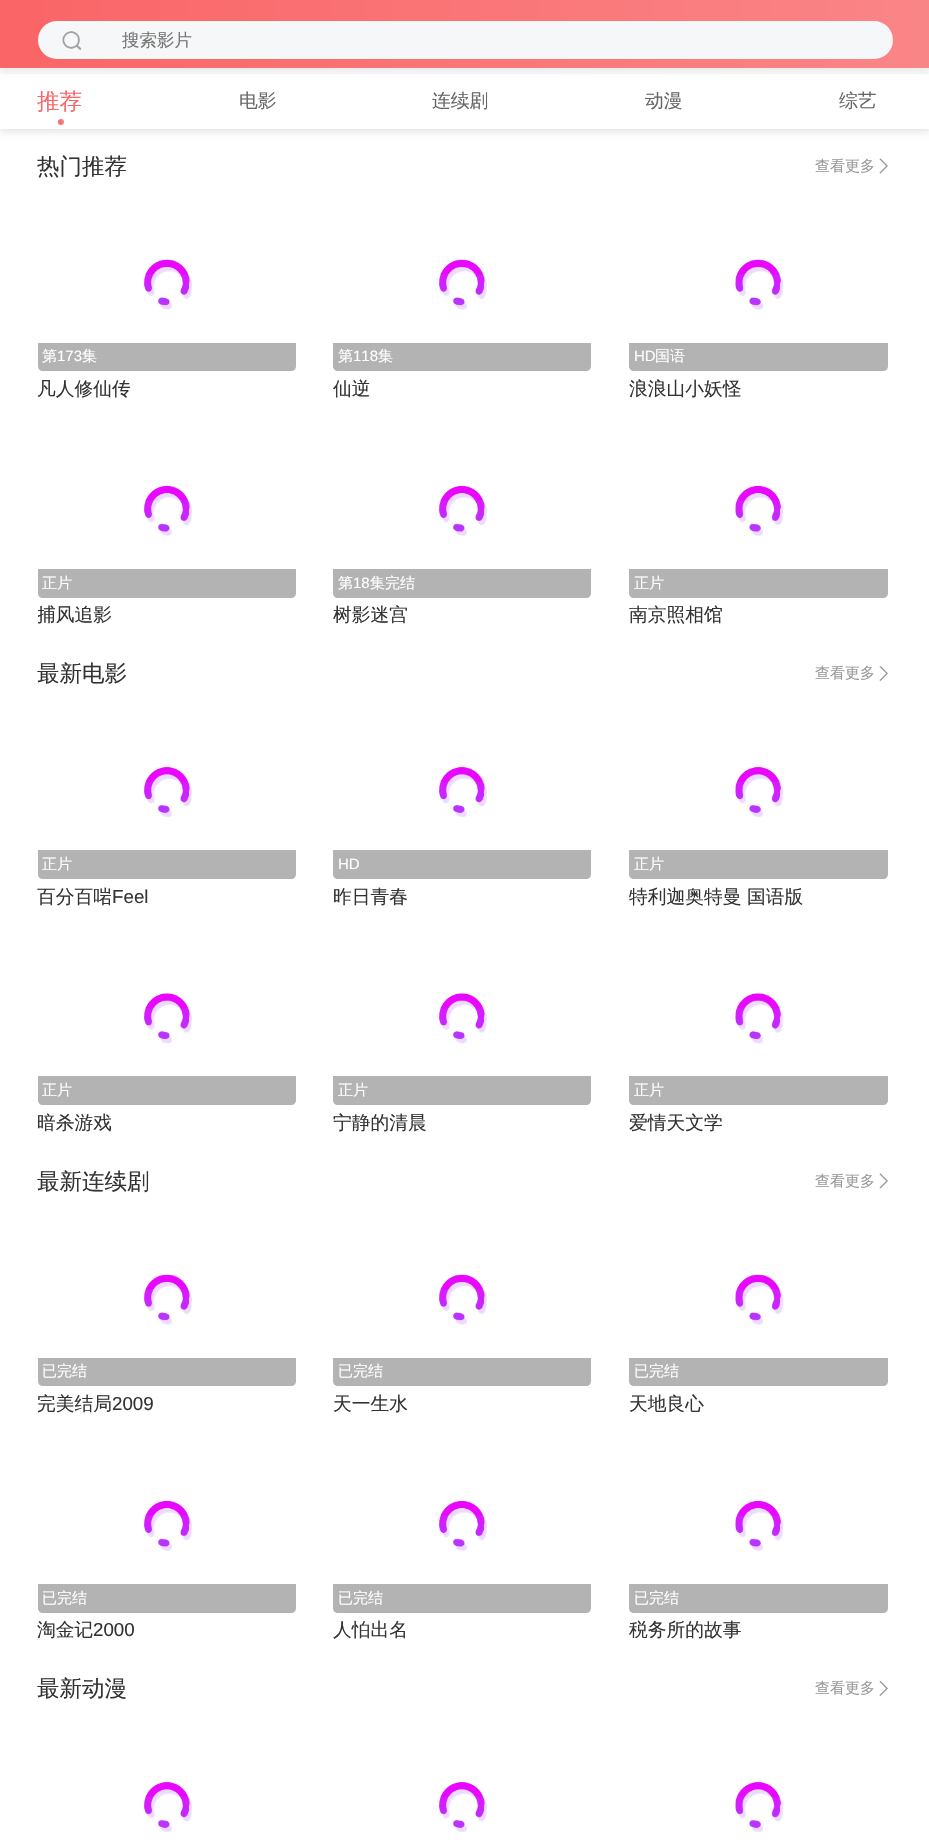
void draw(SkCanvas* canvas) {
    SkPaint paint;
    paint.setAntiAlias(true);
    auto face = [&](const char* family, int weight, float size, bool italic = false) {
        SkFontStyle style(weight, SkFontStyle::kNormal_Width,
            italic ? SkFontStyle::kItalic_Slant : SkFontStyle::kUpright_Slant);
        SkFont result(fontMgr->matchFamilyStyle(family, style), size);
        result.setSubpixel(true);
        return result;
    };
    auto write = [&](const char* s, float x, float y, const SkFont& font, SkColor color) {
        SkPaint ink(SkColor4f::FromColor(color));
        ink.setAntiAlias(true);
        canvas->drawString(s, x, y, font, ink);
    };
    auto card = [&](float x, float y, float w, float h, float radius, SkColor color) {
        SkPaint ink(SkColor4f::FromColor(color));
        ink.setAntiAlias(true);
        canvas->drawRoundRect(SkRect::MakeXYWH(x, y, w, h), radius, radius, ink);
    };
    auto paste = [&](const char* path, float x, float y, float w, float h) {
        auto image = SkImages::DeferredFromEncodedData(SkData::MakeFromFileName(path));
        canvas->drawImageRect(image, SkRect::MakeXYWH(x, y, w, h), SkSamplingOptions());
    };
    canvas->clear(SK_ColorWHITE);
    paint.setColor(SkColorSetARGB(26, 0, 0, 0));
    paint.setMaskFilter(SkMaskFilter::MakeBlur(kNormal_SkBlurStyle, 3));
    canvas->drawRect(SkRect::MakeXYWH(0, 3, 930, 67), paint);
    paint.setMaskFilter(nullptr);
    {
        const SkColor colors[] = {SkColorSetRGB(250, 101, 103), SkColorSetRGB(250, 133, 135)};
        const float stops[] = {0, 1};
        const SkPoint ends[] = {{0, 34}, {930, 34}};
        paint.setShader(SkGradientShader::MakeLinear(ends, colors, stops, 2, SkTileMode::kClamp));
        paint.setAlpha(255);
    }
    canvas->drawRect(SkRect::MakeXYWH(0, 0, 929, 68), paint);
    card(38, 21, 855, 38, 19, SkColorSetRGB(246, 247, 248));
    paste("pic1.png", 62, 31, 20, 19);
    auto kFont1 = face("WenQuanYi Zen Hei", 500, 17.5f);
    write("搜索影片", 122, 46, kFont1, SkColorSetRGB(117, 117, 117));
    canvas->save();
    canvas->clipPath(SkPathBuilder(SkPathFillType::kEvenOdd).moveTo(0, 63).lineTo(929, 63).lineTo(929, 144).lineTo(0, 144).close().moveTo(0, 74).lineTo(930, 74).lineTo(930, 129).lineTo(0, 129).close().detach(), true);
    paint.setShader(nullptr);
    paint.setColor(SkColorSetRGB(223, 223, 223));
    paint.setMaskFilter(SkMaskFilter::MakeBlur(kNormal_SkBlurStyle, 4));
    canvas->drawRect(SkRect::MakeXYWH(0, 76, 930, 55), paint);
    paint.setMaskFilter(nullptr);
    canvas->restore();
    auto kFont2 = face("WenQuanYi Zen Hei", 500, 22.5f);
    write("推荐", 37, 109, kFont2, SkColorSetRGB(250, 101, 103));
    {
        const SkColor colors[] = {SkColorSetRGB(250, 101, 103), SkColorSetRGB(250, 133, 135)};
        const float stops[] = {0, 1};
        const SkPoint ends[] = {{58, 122}, {64, 122}};
        paint.setShader(SkGradientShader::MakeLinear(ends, colors, stops, 2, SkTileMode::kClamp));
        paint.setAlpha(255);
    }
    canvas->drawCircle(61, 122, 3, paint);
    auto kFont3 = face("WenQuanYi Zen Hei", 500, 18.75f);
    write("电影", 239, 107, kFont3, SkColorSetRGB(102, 102, 102));
    write("连续剧", 432, 107, kFont3, SkColorSetRGB(102, 102, 102));
    write("动漫", 645, 107, kFont3, SkColorSetRGB(102, 102, 102));
    write("综艺", 839, 107, kFont3, SkColorSetRGB(102, 102, 102));
    write("热门推荐", 37, 174, kFont2, SkColorSetRGB(51, 51, 51));
    auto kFont4 = face("WenQuanYi Zen Hei", 500, 15);
    write("查看更多", 815, 171, kFont4, SkColorSetRGB(153, 153, 153));
    paste("pic2.png", 879, 158, 9, 16);
    paste("pic3.png", 144, 259, 48, 51);
    paint.setShader(nullptr);
    paint.setColor(SkColorSetRGB(179, 179, 179));
    canvas->drawPath(SkPathBuilder().moveTo(38, 343).lineTo(296, 343).lineTo(296, 366).cubicTo(296, 369, 294, 371, 291, 371).lineTo(43, 371).cubicTo(40, 371, 38, 369, 38, 366).close().detach(), paint);
    write("第", 42, 361, kFont4, SK_ColorWHITE);
    auto kFont5 = face("Liberation Sans", 400, 15);
    write("173", 57, 361, kFont5, SK_ColorWHITE);
    write("集", 82, 361, kFont4, SK_ColorWHITE);
    write("凡人修仙传", 37, 395, kFont3, SkColorSetRGB(51, 51, 51));
    paste("pic3.png", 439, 259, 48, 51);
    canvas->drawPath(SkPathBuilder().moveTo(333, 343).lineTo(591, 343).lineTo(591, 366).cubicTo(591, 369, 589, 371, 586, 371).lineTo(338, 371).cubicTo(335, 371, 333, 369, 333, 366).close().detach(), paint);
    write("第", 338, 361, kFont4, SK_ColorWHITE);
    write("118", 353, 361, kFont5, SK_ColorWHITE);
    write("集", 378, 361, kFont4, SK_ColorWHITE);
    write("仙逆", 333, 395, kFont3, SkColorSetRGB(51, 51, 51));
    paste("pic4.png", 735, 259, 49, 51);
    canvas->drawPath(SkPathBuilder().moveTo(629, 343).lineTo(888, 343).lineTo(888, 366).cubicTo(888, 369, 886, 371, 883, 371).lineTo(634, 371).cubicTo(631, 371, 629, 369, 629, 366).close().detach(), paint);
    write("HD", 634, 361, kFont5, SK_ColorWHITE);
    write("国语", 655, 361, kFont4, SK_ColorWHITE);
    write("浪浪山小妖怪", 629, 395, kFont3, SkColorSetRGB(51, 51, 51));
    paste("pic5.png", 144, 485, 48, 51);
    canvas->drawPath(SkPathBuilder().moveTo(38, 569).lineTo(296, 569).lineTo(296, 593).cubicTo(296, 596, 294, 598, 291, 598).lineTo(43, 598).cubicTo(40, 598, 38, 596, 38, 593).close().detach(), paint);
    write("正片", 42, 588, kFont4, SK_ColorWHITE);
    canvas->save();
    canvas->clipRect(SkRect::MakeXYWH(38, 604, 258, 24));
    write("捕风追影", 37, 621, kFont3, SkColorSetRGB(51, 51, 51));
    canvas->restore();
    paste("pic5.png", 439, 485, 48, 51);
    canvas->drawPath(SkPathBuilder().moveTo(333, 569).lineTo(591, 569).lineTo(591, 593).cubicTo(591, 596, 589, 598, 586, 598).lineTo(338, 598).cubicTo(335, 598, 333, 596, 333, 593).close().detach(), paint);
    write("第", 338, 588, kFont4, SK_ColorWHITE);
    write("18", 353, 588, kFont5, SK_ColorWHITE);
    write("集完结", 370, 588, kFont4, SK_ColorWHITE);
    write("树影迷宫", 333, 621, kFont3, SkColorSetRGB(51, 51, 51));
    paste("pic6.png", 735, 485, 49, 51);
    canvas->drawPath(SkPathBuilder().moveTo(629, 569).lineTo(888, 569).lineTo(888, 593).cubicTo(888, 596, 886, 598, 883, 598).lineTo(634, 598).cubicTo(631, 598, 629, 596, 629, 593).close().detach(), paint);
    write("正片", 634, 588, kFont4, SK_ColorWHITE);
    write("南京照相馆", 629, 621, kFont3, SkColorSetRGB(51, 51, 51));
    write("最新电影", 37, 681, kFont2, SkColorSetRGB(51, 51, 51));
    write("查看更多", 815, 678, kFont4, SkColorSetRGB(153, 153, 153));
    paste("pic7.png", 879, 665, 9, 16);
    paste("pic8.png", 144, 766, 48, 52);
    canvas->drawPath(SkPathBuilder().moveTo(38, 850).lineTo(296, 850).lineTo(296, 874).cubicTo(296, 877, 294, 879, 291, 879).lineTo(43, 879).cubicTo(40, 879, 38, 877, 38, 874).close().detach(), paint);
    write("正片", 42, 869, kFont4, SK_ColorWHITE);
    write("百分百啱", 37, 903, kFont3, SkColorSetRGB(51, 51, 51));
    auto kFont6 = face("Liberation Sans", 400, 18.75f);
    write("Feel", 112, 903, kFont6, SkColorSetRGB(51, 51, 51));
    paste("pic8.png", 439, 766, 48, 52);
    canvas->drawPath(SkPathBuilder().moveTo(333, 850).lineTo(591, 850).lineTo(591, 874).cubicTo(591, 877, 589, 879, 586, 879).lineTo(338, 879).cubicTo(335, 879, 333, 877, 333, 874).close().detach(), paint);
    write("HD", 338, 869, kFont5, SK_ColorWHITE);
    write("昨日青春", 333, 903, kFont3, SkColorSetRGB(51, 51, 51));
    paste("pic9.png", 735, 766, 49, 52);
    canvas->drawPath(SkPathBuilder().moveTo(629, 850).lineTo(888, 850).lineTo(888, 874).cubicTo(888, 877, 886, 879, 883, 879).lineTo(634, 879).cubicTo(631, 879, 629, 877, 629, 874).close().detach(), paint);
    write("正片", 634, 869, kFont4, SK_ColorWHITE);
    write("特利迦奥特曼 国语版", 629, 903, kFont3, SkColorSetRGB(51, 51, 51));
    paste("pic10.png", 144, 993, 48, 51);
    canvas->drawPath(SkPathBuilder().moveTo(38, 1076).lineTo(296, 1076).lineTo(296, 1100).cubicTo(296, 1103, 294, 1105, 291, 1105).lineTo(43, 1105).cubicTo(40, 1105, 38, 1103, 38, 1100).close().detach(), paint);
    write("正片", 42, 1095, kFont4, SK_ColorWHITE);
    write("暗杀游戏", 37, 1129, kFont3, SkColorSetRGB(51, 51, 51));
    paste("pic10.png", 439, 993, 48, 51);
    canvas->drawPath(SkPathBuilder().moveTo(333, 1076).lineTo(591, 1076).lineTo(591, 1100).cubicTo(591, 1103, 589, 1105, 586, 1105).lineTo(338, 1105).cubicTo(335, 1105, 333, 1103, 333, 1100).close().detach(), paint);
    write("正片", 338, 1095, kFont4, SK_ColorWHITE);
    write("宁静的清晨", 333, 1129, kFont3, SkColorSetRGB(51, 51, 51));
    paste("pic11.png", 735, 993, 49, 51);
    canvas->drawPath(SkPathBuilder().moveTo(629, 1076).lineTo(888, 1076).lineTo(888, 1100).cubicTo(888, 1103, 886, 1105, 883, 1105).lineTo(634, 1105).cubicTo(631, 1105, 629, 1103, 629, 1100).close().detach(), paint);
    write("正片", 634, 1095, kFont4, SK_ColorWHITE);
    write("爱情天文学", 629, 1129, kFont3, SkColorSetRGB(51, 51, 51));
    write("最新连续剧", 37, 1189, kFont2, SkColorSetRGB(51, 51, 51));
    write("查看更多", 815, 1186, kFont4, SkColorSetRGB(153, 153, 153));
    paste("pic2.png", 879, 1173, 9, 16);
    paste("pic3.png", 144, 1274, 48, 51);
    canvas->drawPath(SkPathBuilder().moveTo(38, 1358).lineTo(296, 1358).lineTo(296, 1381).cubicTo(296, 1384, 294, 1386, 291, 1386).lineTo(43, 1386).cubicTo(40, 1386, 38, 1384, 38, 1381).close().detach(), paint);
    write("已完结", 42, 1376, kFont4, SK_ColorWHITE);
    write("完美结局", 37, 1410, kFont3, SkColorSetRGB(51, 51, 51));
    write("2009", 112, 1410, kFont6, SkColorSetRGB(51, 51, 51));
    paste("pic3.png", 439, 1274, 48, 51);
    canvas->drawPath(SkPathBuilder().moveTo(333, 1358).lineTo(591, 1358).lineTo(591, 1381).cubicTo(591, 1384, 589, 1386, 586, 1386).lineTo(338, 1386).cubicTo(335, 1386, 333, 1384, 333, 1381).close().detach(), paint);
    write("已完结", 338, 1376, kFont4, SK_ColorWHITE);
    write("天一生水", 333, 1410, kFont3, SkColorSetRGB(51, 51, 51));
    paste("pic4.png", 735, 1274, 49, 51);
    canvas->drawPath(SkPathBuilder().moveTo(629, 1358).lineTo(888, 1358).lineTo(888, 1381).cubicTo(888, 1384, 886, 1386, 883, 1386).lineTo(634, 1386).cubicTo(631, 1386, 629, 1384, 629, 1381).close().detach(), paint);
    write("已完结", 634, 1376, kFont4, SK_ColorWHITE);
    write("天地良心", 629, 1410, kFont3, SkColorSetRGB(51, 51, 51));
    paste("pic12.png", 144, 1500, 48, 51);
    canvas->drawPath(SkPathBuilder().moveTo(38, 1584).lineTo(296, 1584).lineTo(296, 1608).cubicTo(296, 1611, 294, 1613, 291, 1613).lineTo(43, 1613).cubicTo(40, 1613, 38, 1611, 38, 1608).close().detach(), paint);
    write("已完结", 42, 1603, kFont4, SK_ColorWHITE);
    write("淘金记", 37, 1636, kFont3, SkColorSetRGB(51, 51, 51));
    write("2000", 93, 1636, kFont6, SkColorSetRGB(51, 51, 51));
    paste("pic12.png", 439, 1500, 48, 51);
    canvas->drawPath(SkPathBuilder().moveTo(333, 1584).lineTo(591, 1584).lineTo(591, 1608).cubicTo(591, 1611, 589, 1613, 586, 1613).lineTo(338, 1613).cubicTo(335, 1613, 333, 1611, 333, 1608).close().detach(), paint);
    write("已完结", 338, 1603, kFont4, SK_ColorWHITE);
    write("人怕出名", 333, 1636, kFont3, SkColorSetRGB(51, 51, 51));
    paste("pic13.png", 735, 1500, 49, 51);
    canvas->drawPath(SkPathBuilder().moveTo(629, 1584).lineTo(888, 1584).lineTo(888, 1608).cubicTo(888, 1611, 886, 1613, 883, 1613).lineTo(634, 1613).cubicTo(631, 1613, 629, 1611, 629, 1608).close().detach(), paint);
    write("已完结", 634, 1603, kFont4, SK_ColorWHITE);
    write("税务所的故事", 629, 1636, kFont3, SkColorSetRGB(51, 51, 51));
    write("最新动漫", 37, 1696, kFont2, SkColorSetRGB(51, 51, 51));
    write("查看更多", 815, 1693, kFont4, SkColorSetRGB(153, 153, 153));
    paste("pic7.png", 879, 1680, 9, 16);
    paste("pic14.png", 144, 1781, 48, 52);
    paste("pic14.png", 439, 1781, 48, 52);
    paste("pic15.png", 735, 1781, 49, 52);
}
